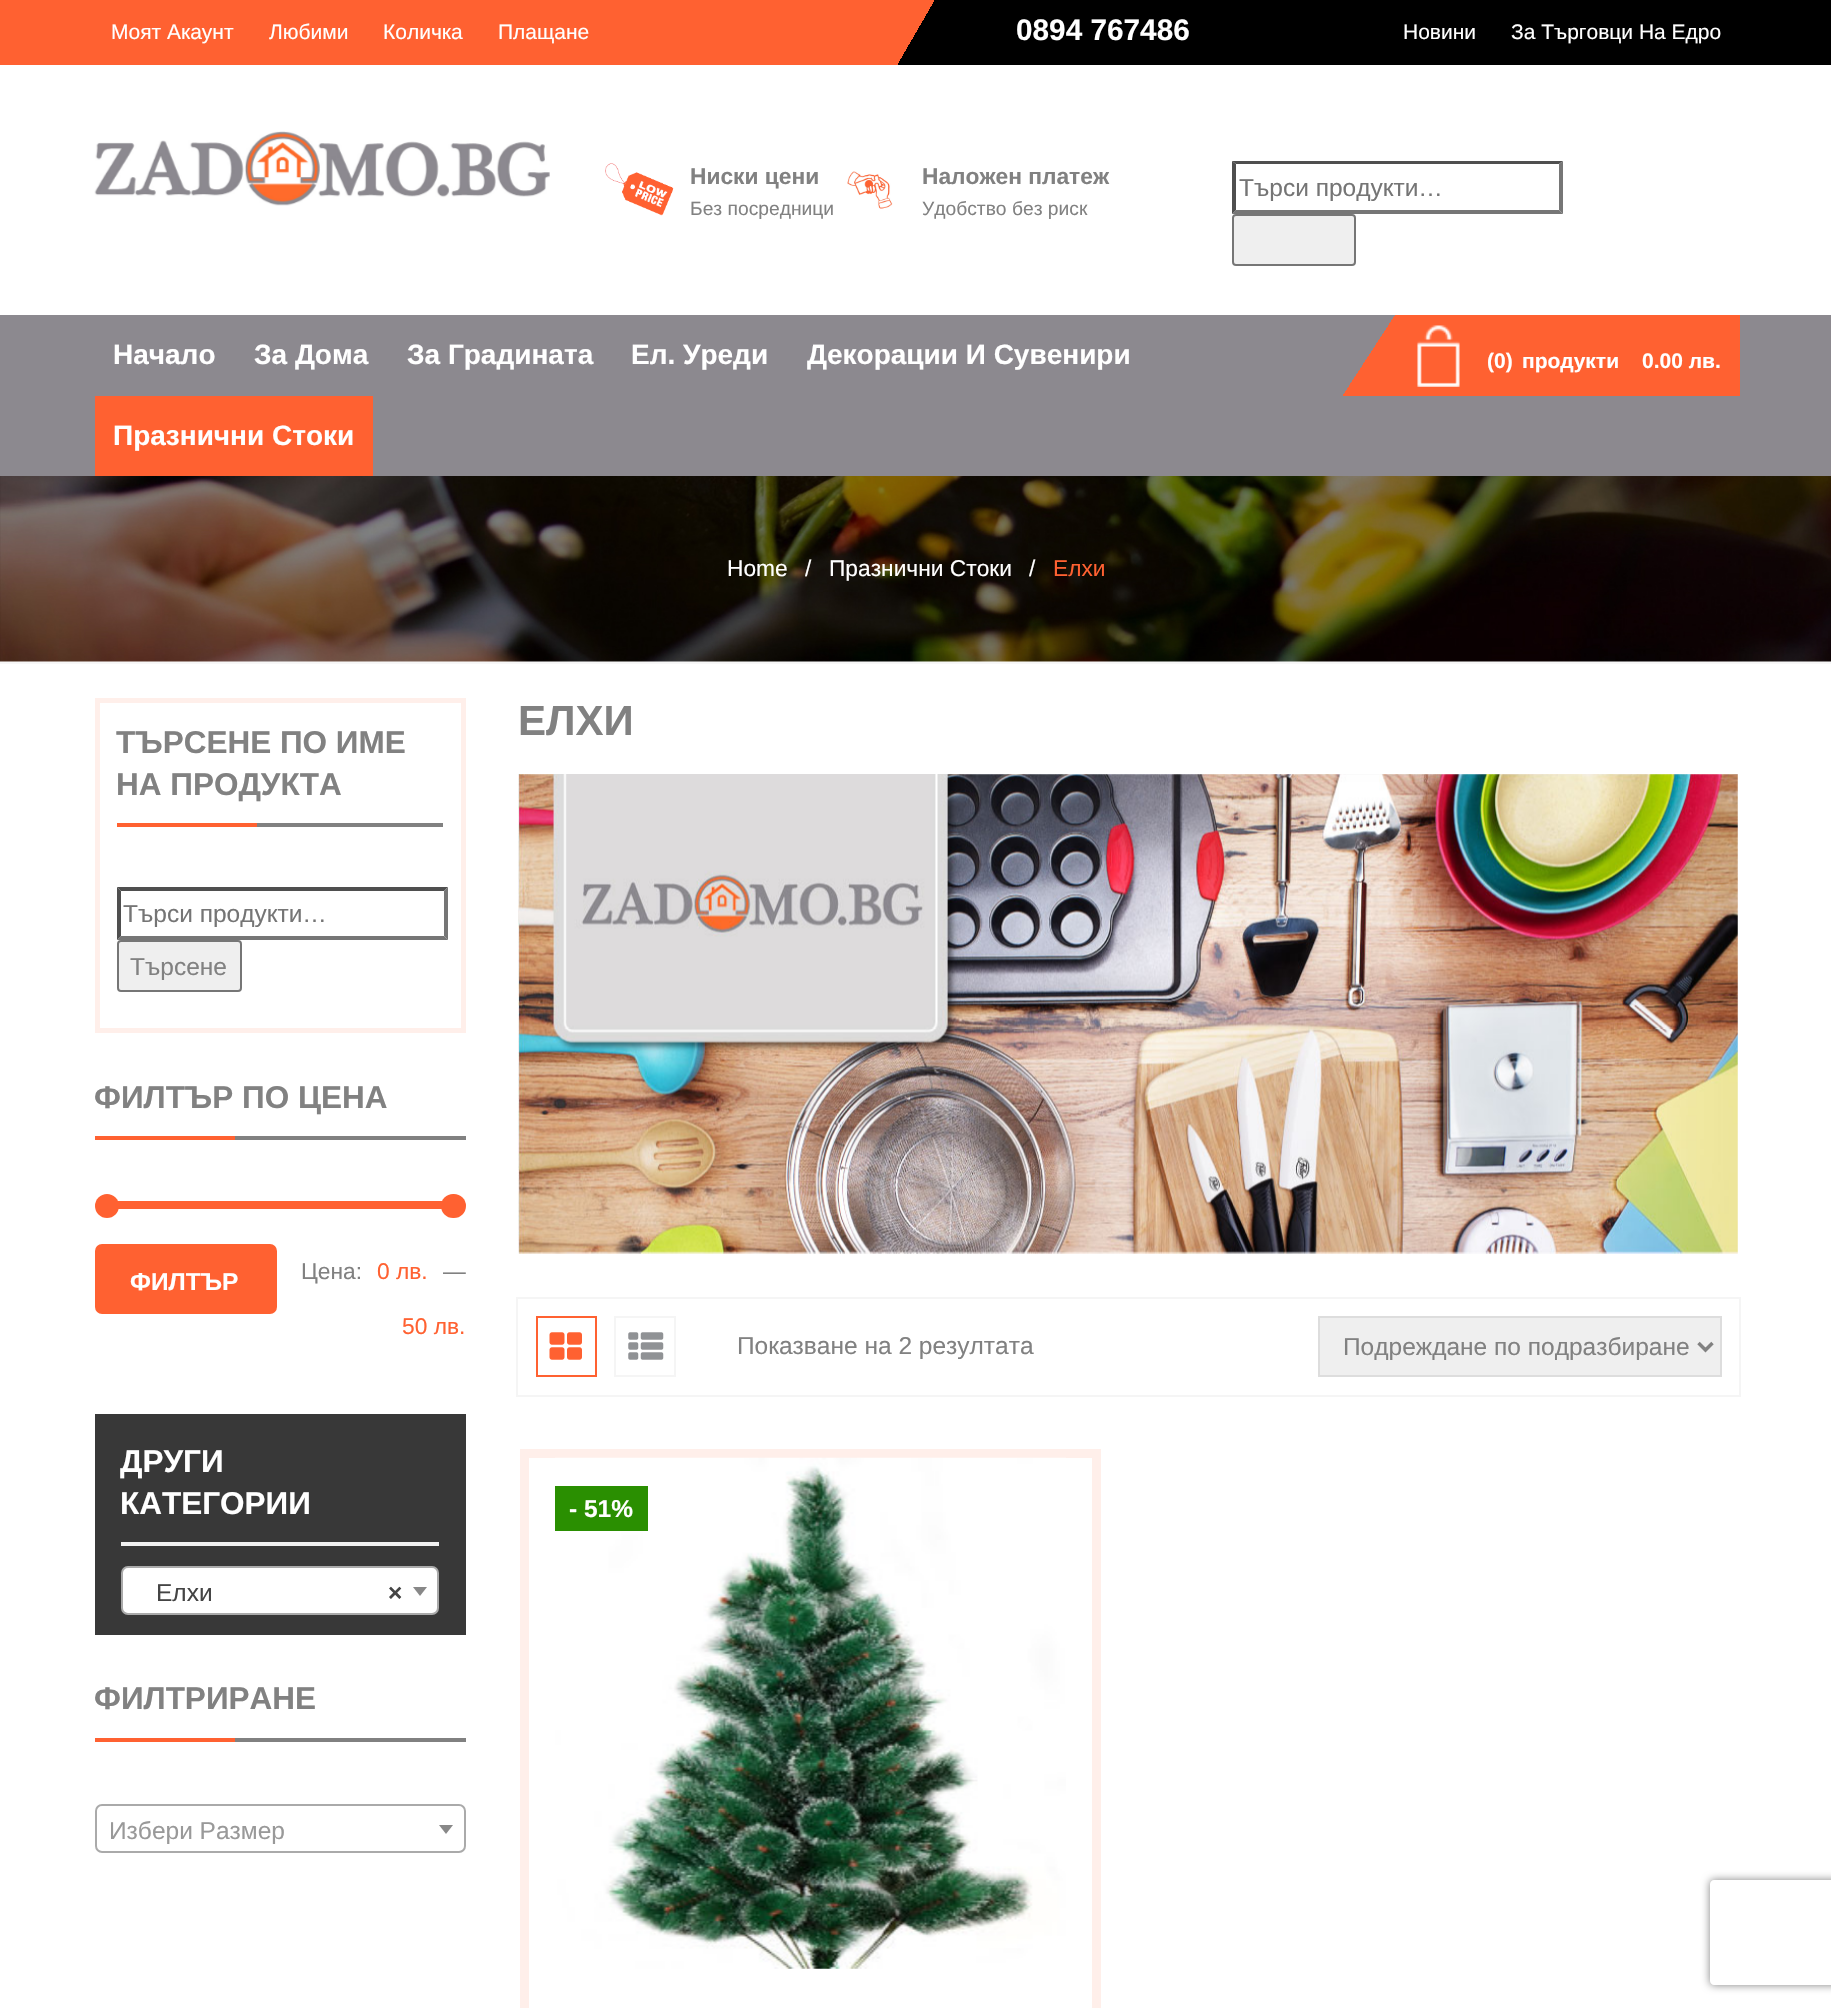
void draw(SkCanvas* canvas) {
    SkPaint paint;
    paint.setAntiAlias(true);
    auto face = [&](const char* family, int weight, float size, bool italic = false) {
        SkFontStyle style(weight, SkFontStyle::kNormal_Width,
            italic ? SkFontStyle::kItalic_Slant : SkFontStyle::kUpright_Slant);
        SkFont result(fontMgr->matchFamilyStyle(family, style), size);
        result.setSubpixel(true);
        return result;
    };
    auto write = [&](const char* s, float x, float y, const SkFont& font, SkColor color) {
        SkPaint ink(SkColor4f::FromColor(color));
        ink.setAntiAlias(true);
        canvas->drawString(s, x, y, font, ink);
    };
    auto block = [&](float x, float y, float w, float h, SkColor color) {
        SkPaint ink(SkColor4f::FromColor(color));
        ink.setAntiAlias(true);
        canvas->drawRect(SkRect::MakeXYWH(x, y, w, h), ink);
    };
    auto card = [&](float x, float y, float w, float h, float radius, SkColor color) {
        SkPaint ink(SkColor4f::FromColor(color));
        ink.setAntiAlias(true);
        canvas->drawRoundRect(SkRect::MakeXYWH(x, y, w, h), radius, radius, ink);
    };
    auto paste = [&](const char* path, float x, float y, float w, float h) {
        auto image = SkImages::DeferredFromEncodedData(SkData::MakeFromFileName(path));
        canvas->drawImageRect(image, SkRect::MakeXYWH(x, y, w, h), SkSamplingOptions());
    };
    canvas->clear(SK_ColorWHITE);
    {
        const SkColor colors[] = {SkColorSetRGB(255, 97, 49), SK_ColorBLACK};
        const float stops[] = {0.5f, 0.5f};
        const SkPoint ends[] = {{215, -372}, {1617, 437}};
        paint.setShader(SkGradientShader::MakeLinear(ends, colors, stops, 2, SkTileMode::kClamp));
        paint.setAlpha(255);
    }
    canvas->drawRect(SkRect::MakeXYWH(0, 0, 1831, 65), paint);
    auto kFont1 = face("Liberation Sans", 400, 21);
    write("Моят Акаунт", 111, 39, kFont1, SK_ColorWHITE);
    write("Любими", 269, 39, kFont1, SK_ColorWHITE);
    write("Количка", 383, 39, kFont1, SK_ColorWHITE);
    write("Плащане", 498, 39, kFont1, SK_ColorWHITE);
    auto kFont2 = face("Liberation Sans", 700, 29.75f);
    write("0894 767486", 1016, 40, kFont2, SK_ColorWHITE);
    write("Новини", 1403, 39, kFont1, SK_ColorWHITE);
    write("За Търговци На Едро", 1511, 39, kFont1, SK_ColorWHITE);
    paste("pic1.png", 94, 131, 456, 75);
    paste("pic2.png", 605, 163, 69, 53);
    auto kFont3 = face("Liberation Sans", 700, 22.75f);
    write("Ниски цени", 690, 184, kFont3, SkColorSetRGB(129, 129, 129));
    auto kFont4 = face("Liberation Sans", 400, 19.25f);
    write("Без посредници", 690, 215, kFont4, SkColorSetRGB(129, 129, 129));
    paste("pic3.png", 847, 171, 46, 38);
    write("Наложен платеж", 922, 184, kFont3, SkColorSetRGB(129, 129, 129));
    write("Удобство без риск", 922, 215, kFont4, SkColorSetRGB(129, 129, 129));
    paint.setShader(nullptr);
    paint.setColor(SkColorSetRGB(79, 79, 79));
    canvas->drawPath(SkPathBuilder().moveTo(1232, 161).lineTo(1563, 161).lineTo(1559, 164).lineTo(1236, 164).close().detach(), paint);
    paint.setColor(SkColorSetRGB(118, 118, 118));
    canvas->drawPath(SkPathBuilder().moveTo(1563, 161).lineTo(1563, 214).lineTo(1559, 210).lineTo(1559, 164).close().detach(), paint);
    canvas->drawPath(SkPathBuilder().moveTo(1563, 214).lineTo(1232, 214).lineTo(1236, 210).lineTo(1559, 210).close().detach(), paint);
    paint.setColor(SkColorSetRGB(79, 79, 79));
    canvas->drawPath(SkPathBuilder().moveTo(1232, 214).lineTo(1232, 161).lineTo(1236, 164).lineTo(1236, 210).close().detach(), paint);
    canvas->save();
    canvas->clipRect(SkRect::MakeXYWH(1239, 173, 310, 28));
    auto kFont5 = face("Liberation Sans", 400, 24.5f);
    write("Търси продукти…", 1239, 196, kFont5, SkColorSetRGB(117, 117, 117));
    canvas->restore();
    paint.setColor(SkColorSetRGB(239, 239, 239));
    canvas->drawRoundRect(SkRect::MakeXYWH(1233, 215, 122, 50), 3, 3, paint);
    paint.setStyle(SkPaint::kStroke_Style);
    paint.setStrokeWidth(2);
    paint.setColor(SkColorSetRGB(118, 118, 118));
    canvas->drawRoundRect(SkRect::MakeXYWH(1233, 215, 122, 50), 3, 3, paint);
    block(0, 315, 1831, 161, SkColorSetRGB(140, 137, 143));
    auto kFont6 = face("Liberation Sans", 700, 28);
    write("Начало", 113, 364, kFont6, SK_ColorWHITE);
    write("За Дома", 254, 364, kFont6, SK_ColorWHITE);
    write("За Градината", 407, 364, kFont6, SK_ColorWHITE);
    write("Ел. Уреди", 631, 364, kFont6, SK_ColorWHITE);
    write("Декорации И Сувенири", 807, 364, kFont6, SK_ColorWHITE);
    block(95, 396, 278, 80, SkColorSetRGB(255, 97, 49));
    write("Празнични Стоки", 113, 445, kFont6, SK_ColorWHITE);
    block(1400, 315, 340, 81, SkColorSetRGB(255, 97, 49));
    paste("pic4.png", 1417, 325, 43, 62);
    paint.setStyle(SkPaint::kFill_Style);
    {
        const SkColor colors[] = {SkColorSetRGB(140, 137, 143), SkColorSetRGB(255, 97, 49)};
        const float stops[] = {0.5f, 0.5f};
        const SkPoint ends[] = {{1329, 329}, {1409, 381}};
        paint.setShader(SkGradientShader::MakeLinear(ends, colors, stops, 2, SkTileMode::kClamp));
        paint.setAlpha(255);
    }
    canvas->drawRect(SkRect::MakeXYWH(1343, 315, 57, 81), paint);
    auto kFont7 = face("Liberation Sans", 700, 21);
    write("(0)", 1487, 368, kFont7, SK_ColorWHITE);
    write("продукти", 1522, 368, kFont7, SK_ColorWHITE);
    write("0.00 лв.", 1642, 368, kFont7, SK_ColorWHITE);
    paste("pic5.png", 0, 476, 1831, 186);
    block(0, 662, 1831, 2, SkColorSetRGB(247, 247, 247));
    auto kFont8 = face("Liberation Sans", 400, 22.75f);
    write("Home", 727, 576, kFont8, SK_ColorWHITE);
    write("/", 805, 576, kFont8, SK_ColorWHITE);
    write("Празнични Стоки", 829, 576, kFont8, SK_ColorWHITE);
    write("/", 1029, 576, kFont8, SK_ColorWHITE);
    write("Елхи", 1053, 576, kFont8, SkColorSetRGB(255, 97, 49));
    paint.setStyle(SkPaint::kStroke_Style);
    paint.setStrokeWidth(5);
    paint.setShader(nullptr);
    paint.setColor(SkColorSetRGB(255, 239, 234));
    canvas->drawRect(SkRect::MakeXYWH(97.5f, 700.5f, 366, 330), paint);
    block(257, 823, 186, 4, SkColorSetRGB(129, 129, 129));
    auto kFont9 = face("Liberation Sans", 700, 31.5f);
    write("ТЪРСЕНЕ ПО ИМЕ", 116, 753, kFont9, SkColorSetRGB(129, 129, 129));
    write("НА ПРОДУКТА", 116, 795, kFont9, SkColorSetRGB(129, 129, 129));
    block(117, 823, 140, 4, SkColorSetRGB(255, 97, 49));
    paint.setStyle(SkPaint::kFill_Style);
    paint.setColor(SkColorSetRGB(79, 79, 79));
    canvas->drawPath(SkPathBuilder().moveTo(117, 887).lineTo(448, 887).lineTo(444, 891).lineTo(121, 891).close().detach(), paint);
    paint.setColor(SkColorSetRGB(118, 118, 118));
    canvas->drawPath(SkPathBuilder().moveTo(448, 887).lineTo(448, 940).lineTo(444, 936).lineTo(444, 891).close().detach(), paint);
    canvas->drawPath(SkPathBuilder().moveTo(448, 940).lineTo(117, 940).lineTo(121, 936).lineTo(444, 936).close().detach(), paint);
    paint.setColor(SkColorSetRGB(79, 79, 79));
    canvas->drawPath(SkPathBuilder().moveTo(117, 940).lineTo(117, 887).lineTo(121, 891).lineTo(121, 936).close().detach(), paint);
    write("Търси продукти…", 123, 922, kFont5, SkColorSetRGB(117, 117, 117));
    paint.setColor(SkColorSetRGB(239, 239, 239));
    canvas->drawRoundRect(SkRect::MakeXYWH(118, 941, 123, 50), 3, 3, paint);
    paint.setStyle(SkPaint::kStroke_Style);
    paint.setStrokeWidth(2);
    paint.setColor(SkColorSetRGB(118, 118, 118));
    canvas->drawRoundRect(SkRect::MakeXYWH(118, 941, 123, 50), 3, 3, paint);
    write("Търсене", 130, 975, kFont5, SkColorSetRGB(129, 129, 129));
    block(235, 1136, 231, 4, SkColorSetRGB(129, 129, 129));
    write("ФИЛТЪР ПО ЦЕНА", 94, 1108, kFont9, SkColorSetRGB(129, 129, 129));
    block(95, 1136, 140, 4, SkColorSetRGB(255, 97, 49));
    block(117, 1201, 326, 8, SkColorSetRGB(255, 97, 49));
    paint.setStyle(SkPaint::kFill_Style);
    paint.setColor(SkColorSetRGB(255, 97, 49));
    canvas->drawCircle(107, 1206, 12, paint);
    card(441, 1194, 25, 24, 12, SkColorSetRGB(255, 97, 49));
    canvas->drawRoundRect(SkRect::MakeXYWH(96, 1245, 180, 68), 6, 6, paint);
    paint.setStyle(SkPaint::kStroke_Style);
    canvas->drawRoundRect(SkRect::MakeXYWH(96, 1245, 180, 68), 6, 6, paint);
    auto kFont10 = face("Liberation Sans", 700, 24.5f);
    write("ФИЛТЪР", 130, 1290, kFont10, SK_ColorWHITE);
    write("Цена:", 301, 1279, kFont8, SkColorSetRGB(129, 129, 129));
    write("0 лв.", 377, 1279, kFont8, SkColorSetRGB(255, 97, 49));
    write("—", 443, 1279, kFont8, SkColorSetRGB(129, 129, 129));
    write("50 лв.", 402, 1334, kFont8, SkColorSetRGB(255, 97, 49));
    block(95, 1414, 371, 221, SkColorSetRGB(56, 56, 56));
    block(121, 1542, 318, 4, SkColorSetRGB(241, 241, 241));
    write("ДРУГИ", 120, 1472, kFont9, SK_ColorWHITE);
    write("КАТЕГОРИИ", 120, 1514, kFont9, SK_ColorWHITE);
    paint.setStyle(SkPaint::kFill_Style);
    paint.setColor(SK_ColorWHITE);
    canvas->drawRoundRect(SkRect::MakeXYWH(122, 1567, 316, 47), 6, 6, paint);
    paint.setStyle(SkPaint::kStroke_Style);
    paint.setColor(SkColorSetRGB(170, 170, 170));
    canvas->drawRoundRect(SkRect::MakeXYWH(122, 1567, 316, 47), 6, 6, paint);
    write("Елхи", 156, 1601, kFont5, SkColorSetRGB(68, 68, 68));
    write("×", 388, 1601, kFont10, SkColorSetRGB(68, 68, 68));
    paint.setStyle(SkPaint::kFill_Style);
    paint.setColor(SkColorSetRGB(136, 136, 136));
    canvas->drawPath(SkPathBuilder().moveTo(413, 1587).lineTo(427, 1587).lineTo(420, 1596).close().detach(), paint);
    block(235, 1738, 231, 4, SkColorSetRGB(129, 129, 129));
    write("ФИЛТРИРАНЕ", 94, 1709, kFont9, SkColorSetRGB(129, 129, 129));
    block(95, 1738, 140, 4, SkColorSetRGB(255, 97, 49));
    paint.setStyle(SkPaint::kStroke_Style);
    paint.setColor(SkColorSetRGB(170, 170, 170));
    canvas->drawRoundRect(SkRect::MakeXYWH(96, 1805, 369, 47), 6, 6, paint);
    write("Избери Размер", 109, 1839, kFont5, SkColorSetRGB(153, 153, 153));
    paint.setStyle(SkPaint::kFill_Style);
    paint.setColor(SkColorSetRGB(136, 136, 136));
    canvas->drawPath(SkPathBuilder().moveTo(439, 1825).lineTo(453, 1825).lineTo(446, 1834).close().detach(), paint);
    auto kFont11 = face("Liberation Sans", 700, 42);
    write("ЕЛХИ", 518, 735, kFont11, SkColorSetRGB(129, 129, 129));
    paste("pic6.png", 518, 774, 1220, 480);
    paint.setStyle(SkPaint::kStroke_Style);
    paint.setColor(SkColorSetRGB(245, 245, 245));
    canvas->drawRect(SkRect::MakeXYWH(517, 1298, 1223, 98), paint);
    paint.setColor(SkColorSetRGB(255, 97, 49));
    canvas->drawRect(SkRect::MakeXYWH(537, 1317, 59, 59), paint);
    paste("pic7.png", 549, 1332, 33, 28);
    paint.setColor(SkColorSetRGB(245, 245, 245));
    canvas->drawRect(SkRect::MakeXYWH(615, 1317, 60, 59), paint);
    paste("pic8.png", 628, 1332, 36, 28);
    write("Показване на 2 резултата", 737, 1354, kFont5, SkColorSetRGB(129, 129, 129));
    paint.setStyle(SkPaint::kFill_Style);
    paint.setColor(SkColorSetRGB(239, 239, 239));
    canvas->drawRect(SkRect::MakeXYWH(1319, 1317, 402, 59), paint);
    paint.setStyle(SkPaint::kStroke_Style);
    paint.setColor(SkColorSetRGB(221, 221, 221));
    canvas->drawRect(SkRect::MakeXYWH(1319, 1317, 402, 59), paint);
    paint.setStrokeWidth(3.5f);
    paint.setColor(SkColorSetRGB(129, 129, 129));
    canvas->drawPath(SkPathBuilder().moveTo(1698.5f, 1343).lineTo(1705.5f, 1350).lineTo(1712.5f, 1343).detach(), paint);
    write("Подреждане по подразбиране", 1343, 1355, kFont5, SkColorSetRGB(129, 129, 129));
    paint.setStrokeWidth(9);
    paint.setColor(SkColorSetRGB(255, 239, 234));
    canvas->drawRect(SkRect::MakeXYWH(524.5f, 1453.5f, 572, 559), paint);
    paste("pic9.png", 555, 1457, 511, 512);
    block(555, 1486, 93, 45, SkColorSetRGB(42, 143, 1));
    write("- 51%", 569, 1517, kFont10, SK_ColorWHITE);
    canvas->save();
    canvas->clipPath(SkPathBuilder(SkPathFillType::kEvenOdd).moveTo(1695, 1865).lineTo(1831, 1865).lineTo(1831, 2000).lineTo(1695, 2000).close().moveTo(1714, 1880).lineTo(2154, 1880).cubicTo(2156, 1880, 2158, 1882, 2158, 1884).lineTo(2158, 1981).cubicTo(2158, 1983, 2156, 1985, 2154, 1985).lineTo(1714, 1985).cubicTo(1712, 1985, 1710, 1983, 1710, 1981).lineTo(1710, 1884).cubicTo(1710, 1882, 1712, 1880, 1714, 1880).close().detach(), true);
    paint.setStyle(SkPaint::kFill_Style);
    paint.setColor(SkColorSetRGB(128, 128, 128));
    paint.setMaskFilter(SkMaskFilter::MakeBlur(kNormal_SkBlurStyle, 4.5f));
    canvas->drawRoundRect(SkRect::MakeXYWH(1710, 1880, 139, 105), 4, 4, paint);
    paint.setMaskFilter(nullptr);
    canvas->restore();
}
